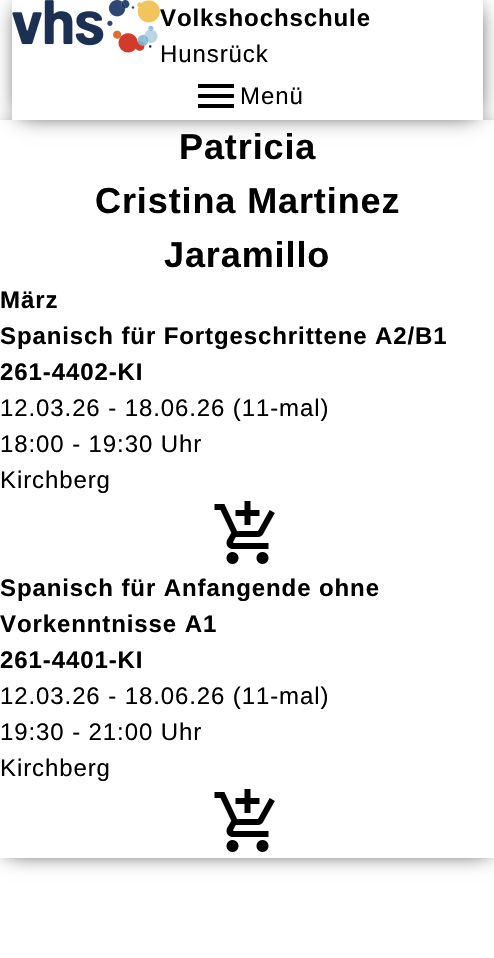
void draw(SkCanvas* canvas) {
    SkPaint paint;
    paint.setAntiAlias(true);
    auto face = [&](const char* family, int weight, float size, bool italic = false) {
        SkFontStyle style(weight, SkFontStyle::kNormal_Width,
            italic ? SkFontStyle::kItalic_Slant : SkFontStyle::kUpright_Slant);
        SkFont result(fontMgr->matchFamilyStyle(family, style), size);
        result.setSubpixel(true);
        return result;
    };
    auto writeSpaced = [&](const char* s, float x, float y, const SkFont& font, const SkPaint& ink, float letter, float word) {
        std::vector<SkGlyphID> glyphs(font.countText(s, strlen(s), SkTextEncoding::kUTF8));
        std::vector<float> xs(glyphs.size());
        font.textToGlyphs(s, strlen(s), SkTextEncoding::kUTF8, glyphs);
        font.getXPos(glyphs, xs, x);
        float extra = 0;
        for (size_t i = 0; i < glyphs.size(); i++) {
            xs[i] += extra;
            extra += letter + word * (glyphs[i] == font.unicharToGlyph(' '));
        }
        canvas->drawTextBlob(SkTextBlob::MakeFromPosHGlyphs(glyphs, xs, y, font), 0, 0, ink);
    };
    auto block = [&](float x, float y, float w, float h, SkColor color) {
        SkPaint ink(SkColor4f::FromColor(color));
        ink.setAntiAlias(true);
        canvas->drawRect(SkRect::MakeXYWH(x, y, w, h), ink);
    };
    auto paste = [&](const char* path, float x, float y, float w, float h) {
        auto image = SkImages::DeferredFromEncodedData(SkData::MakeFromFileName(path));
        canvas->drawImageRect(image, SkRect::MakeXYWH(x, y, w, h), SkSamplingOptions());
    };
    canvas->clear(SK_ColorWHITE);
    paint.setColor(SK_ColorBLACK);
    paint.setMaskFilter(SkMaskFilter::MakeBlur(kNormal_SkBlurStyle, 11));
    canvas->drawRect(SkRect::MakeXYWH(20, 8, 456, 105), paint);
    paint.setMaskFilter(nullptr);
    canvas->save();
    canvas->clipPath(SkPathBuilder(SkPathFillType::kEvenOdd).moveTo(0, 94).lineTo(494, 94).lineTo(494, 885).lineTo(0, 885).close().moveTo(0, 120).lineTo(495, 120).lineTo(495, 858).lineTo(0, 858).close().detach(), true);
    paint.setMaskFilter(SkMaskFilter::MakeBlur(kNormal_SkBlurStyle, 11));
    canvas->drawRect(SkRect::MakeXYWH(8, 128, 480, 723), paint);
    paint.setMaskFilter(nullptr);
    canvas->restore();
    block(12, 0, 471, 120, SK_ColorWHITE);
    paste("pic1.png", 12, 0, 148, 53);
    auto kFont1 = face("Liberation Sans", 700, 24);
    writeSpaced("Volkshochschule", 160, 26, kFont1, paint, 0.9f, 0);
    auto kFont2 = face("Liberation Sans", 400, 24);
    writeSpaced("Hunsrück", 160, 62, kFont2, paint, 0.9f, 0);
    paste("pic2.png", 198, 84, 36, 24);
    writeSpaced("Menü", 240, 104, kFont2, paint, 0.9f, 0);
    auto kFont3 = face("Liberation Sans", 700, 36);
    writeSpaced("Patricia", 179, 159, kFont3, paint, 0.9f, 0);
    writeSpaced("Cristina Martinez", 95, 213, kFont3, paint, 0.9f, 0);
    writeSpaced("Jaramillo", 164, 267, kFont3, paint, 0.9f, 0);
    writeSpaced("März", 0, 308, kFont1, paint, 0.9f, 0);
    writeSpaced("Spanisch für Fortgeschrittene A2/B1", 0, 344, kFont1, paint, 0.9f, 0);
    writeSpaced("261-4402-KI", 0, 380, kFont1, paint, 0.9f, 0);
    writeSpaced("12.03.26 - 18.06.26 (11-mal)", 0, 416, kFont2, paint, 0.9f, 0);
    writeSpaced("18:00 - 19:30 Uhr", 0, 452, kFont2, paint, 0.9f, 0);
    writeSpaced("Kirchberg", 0, 488, kFont2, paint, 0.9f, 0);
    paste("pic3.png", 214, 501, 61, 63);
    writeSpaced("Spanisch für Anfangende ohne", 0, 596, kFont1, paint, 0.9f, 0);
    writeSpaced("Vorkenntnisse A1", 0, 632, kFont1, paint, 0.9f, 0);
    writeSpaced("261-4401-KI", 0, 668, kFont1, paint, 0.9f, 0);
    writeSpaced("12.03.26 - 18.06.26 (11-mal)", 0, 704, kFont2, paint, 0.9f, 0);
    writeSpaced("19:30 - 21:00 Uhr", 0, 740, kFont2, paint, 0.9f, 0);
    writeSpaced("Kirchberg", 0, 776, kFont2, paint, 0.9f, 0);
    paste("pic3.png", 214, 789, 61, 63);
}
